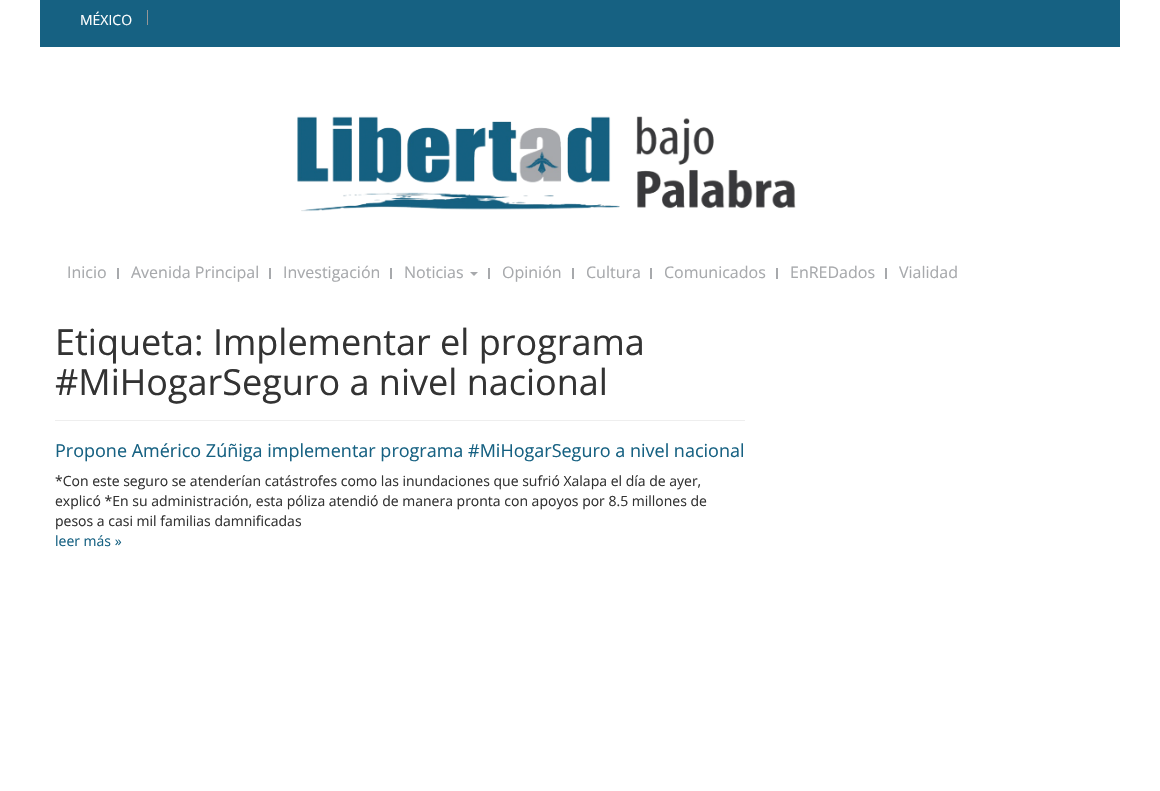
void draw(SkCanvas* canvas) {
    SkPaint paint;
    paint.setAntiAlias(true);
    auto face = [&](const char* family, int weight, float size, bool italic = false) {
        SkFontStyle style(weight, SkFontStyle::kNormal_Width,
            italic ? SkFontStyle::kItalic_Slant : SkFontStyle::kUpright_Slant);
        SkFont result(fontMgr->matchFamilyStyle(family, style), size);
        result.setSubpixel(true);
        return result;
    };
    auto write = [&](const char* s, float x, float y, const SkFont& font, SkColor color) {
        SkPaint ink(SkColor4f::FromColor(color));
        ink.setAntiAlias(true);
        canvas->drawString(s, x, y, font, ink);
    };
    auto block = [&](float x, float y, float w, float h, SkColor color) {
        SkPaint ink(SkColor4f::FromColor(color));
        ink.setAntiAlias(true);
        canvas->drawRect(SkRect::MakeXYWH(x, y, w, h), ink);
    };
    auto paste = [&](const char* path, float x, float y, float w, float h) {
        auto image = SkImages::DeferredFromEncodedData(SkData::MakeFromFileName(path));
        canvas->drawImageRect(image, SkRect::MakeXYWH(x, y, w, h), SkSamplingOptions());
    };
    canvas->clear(SK_ColorWHITE);
    block(40, 0, 1080, 47, SkColorSetRGB(22, 97, 130));
    block(147, 10, 1, 15, SkColorSetRGB(150, 150, 150));
    auto kFont1 = face("Open Sans", 400, 14);
    write("MÉXICO", 80, 25, kFont1, SK_ColorWHITE);
    paste("pic1.png", 297, 116, 499, 96);
    auto kFont2 = face("Open Sans", 400, 16);
    write("Inicio", 67, 278, kFont2, SkColorSetRGB(167, 169, 172));
    block(117, 268, 2, 11, SkColorSetRGB(167, 169, 172));
    write("Avenida Principal", 131, 278, kFont2, SkColorSetRGB(167, 169, 172));
    block(269, 268, 2, 11, SkColorSetRGB(167, 169, 172));
    write("Investigación", 283, 278, kFont2, SkColorSetRGB(167, 169, 172));
    block(390, 268, 2, 11, SkColorSetRGB(167, 169, 172));
    write("Noticias", 404, 278, kFont2, SkColorSetRGB(167, 169, 172));
    paint.setColor(SkColorSetRGB(167, 169, 172));
    canvas->drawPath(SkPathBuilder().moveTo(470, 272).lineTo(478, 272).lineTo(474, 276).close().detach(), paint);
    block(488, 268, 2, 11, SkColorSetRGB(167, 169, 172));
    write("Opinión", 502, 278, kFont2, SkColorSetRGB(167, 169, 172));
    block(572, 268, 2, 11, SkColorSetRGB(167, 169, 172));
    write("Cultura", 586, 278, kFont2, SkColorSetRGB(167, 169, 172));
    block(650, 268, 2, 11, SkColorSetRGB(167, 169, 172));
    write("Comunicados", 664, 278, kFont2, SkColorSetRGB(167, 169, 172));
    block(776, 268, 2, 11, SkColorSetRGB(167, 169, 172));
    write("EnREDados", 790, 278, kFont2, SkColorSetRGB(167, 169, 172));
    block(885, 268, 2, 11, SkColorSetRGB(167, 169, 172));
    write("Vialidad", 899, 278, kFont2, SkColorSetRGB(167, 169, 172));
    block(55, 420, 690, 1, SkColorSetRGB(238, 238, 238));
    auto kFont3 = face("Open Sans", 400, 36);
    write("Etiqueta: Implementar el programa", 55, 355, kFont3, SkColorSetRGB(51, 51, 51));
    write("#MiHogarSeguro a nivel nacional", 55, 395, kFont3, SkColorSetRGB(51, 51, 51));
    auto kFont4 = face("Open Sans", 400, 18);
    write("Propone Américo Zúñiga implementar programa #MiHogarSeguro a nivel nacional", 55, 457, kFont4, SkColorSetRGB(22, 97, 130));
    write("*Con este seguro se atenderían catástrofes como las inundaciones que sufrió Xalapa el día de ayer,", 55, 486, kFont1, SkColorSetRGB(51, 51, 51));
    write("explicó *En su administración, esta póliza atendió de manera pronta con apoyos por 8.5 millones de", 55, 506, kFont1, SkColorSetRGB(51, 51, 51));
    write("pesos a casi mil familias damnificadas", 55, 526, kFont1, SkColorSetRGB(51, 51, 51));
    write("leer más »", 55, 546, kFont1, SkColorSetRGB(22, 97, 130));
}
